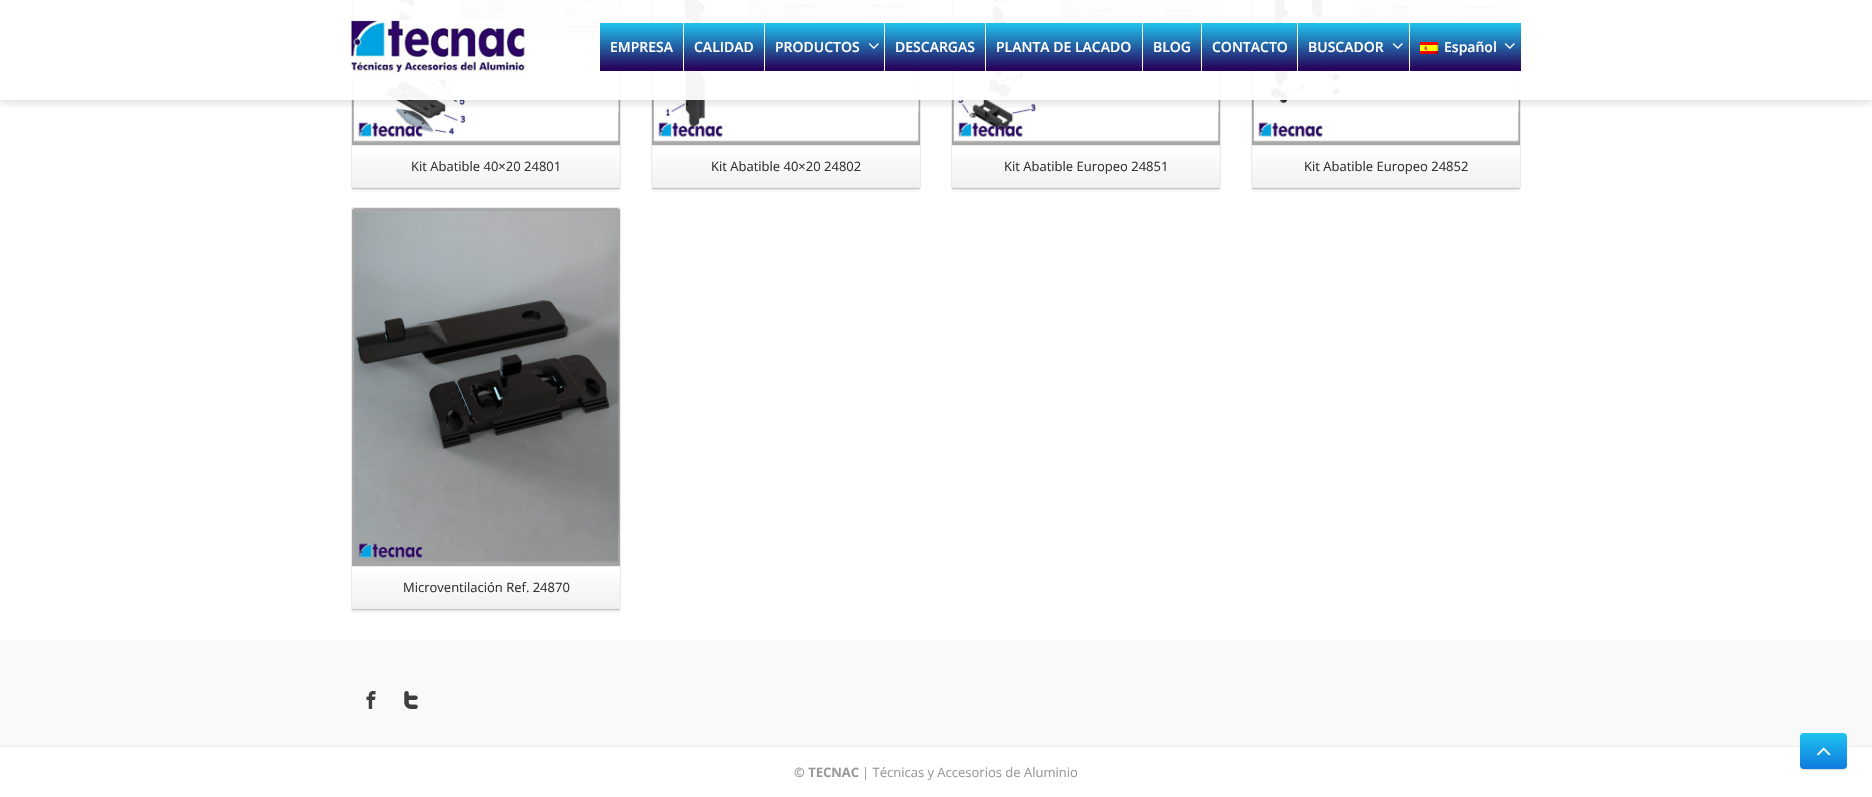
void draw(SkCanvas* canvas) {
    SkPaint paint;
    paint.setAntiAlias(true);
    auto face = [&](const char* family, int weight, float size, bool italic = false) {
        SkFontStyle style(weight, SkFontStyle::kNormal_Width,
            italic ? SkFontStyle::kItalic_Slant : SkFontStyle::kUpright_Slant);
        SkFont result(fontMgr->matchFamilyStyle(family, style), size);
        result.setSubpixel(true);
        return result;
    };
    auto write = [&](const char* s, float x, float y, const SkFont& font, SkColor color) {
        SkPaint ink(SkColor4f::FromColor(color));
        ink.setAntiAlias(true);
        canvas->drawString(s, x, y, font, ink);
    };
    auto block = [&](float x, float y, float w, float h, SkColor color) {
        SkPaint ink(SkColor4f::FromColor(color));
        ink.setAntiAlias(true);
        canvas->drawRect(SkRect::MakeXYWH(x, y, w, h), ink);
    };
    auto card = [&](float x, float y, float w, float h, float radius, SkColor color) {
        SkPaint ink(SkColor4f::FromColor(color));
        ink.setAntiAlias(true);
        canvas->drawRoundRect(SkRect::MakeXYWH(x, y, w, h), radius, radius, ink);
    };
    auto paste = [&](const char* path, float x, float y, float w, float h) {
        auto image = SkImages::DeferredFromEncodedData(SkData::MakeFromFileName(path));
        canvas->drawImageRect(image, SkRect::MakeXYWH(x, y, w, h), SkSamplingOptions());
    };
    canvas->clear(SK_ColorWHITE);
    paint.setColor(SkColorSetRGB(237, 237, 237));
    canvas->drawPath(SkPathBuilder().moveTo(351, 186).lineTo(351, 187).cubicTo(351, 189, 352, 190, 354, 190).lineTo(618, 190).cubicTo(620, 190, 621, 189, 621, 187).lineTo(621, 186).cubicTo(621, 188, 620, 189, 618, 189).lineTo(354, 189).cubicTo(352, 189, 351, 188, 351, 186).close().detach(), paint);
    paint.setColor(SkColorSetARGB(8, 0, 0, 0));
    canvas->drawPath(SkPathBuilder().moveTo(351, 186).cubicTo(351, 188, 351, 191, 353, 192).lineTo(618, 192).cubicTo(621, 192, 621, 188, 621, 186).cubicTo(621, 188, 620, 189, 618, 189).lineTo(354, 189).cubicTo(352, 189, 351, 188, 351, 186).close().detach(), paint);
    card(351, -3, 270, 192, 3, SK_ColorWHITE);
    paint.setStyle(SkPaint::kStroke_Style);
    paint.setStrokeWidth(1);
    paint.setColor(SkColorSetARGB(56, 0, 0, 0));
    canvas->drawPath(SkPathBuilder().moveTo(620, 188).lineTo(618, 188.5f).lineTo(354, 188.5f).lineTo(352, 188).detach(), paint);
    paint.setColor(SkColorSetRGB(235, 235, 235));
    canvas->drawPath(SkPathBuilder().moveTo(352, 188).lineTo(351.5f, 186).lineTo(351.5f, -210).lineTo(352, -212).lineTo(354, -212.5f).lineTo(618, -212.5f).lineTo(620, -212).lineTo(620.5f, -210).lineTo(620.5f, 186).lineTo(620, 188).detach(), paint);
    paste("pic4.png", 352, 0, 268, 145);
    paint.setStyle(SkPaint::kFill_Style);
    paint.setColor(SkColorSetRGB(237, 237, 237));
    canvas->drawPath(SkPathBuilder().moveTo(651, 186).lineTo(651, 187).cubicTo(651, 189, 652, 190, 654, 190).lineTo(918, 190).cubicTo(920, 190, 921, 189, 921, 187).lineTo(921, 186).cubicTo(921, 188, 920, 189, 918, 189).lineTo(654, 189).cubicTo(652, 189, 651, 188, 651, 186).close().detach(), paint);
    paint.setColor(SkColorSetARGB(8, 0, 0, 0));
    canvas->drawPath(SkPathBuilder().moveTo(651, 186).cubicTo(651, 188, 651, 191, 653, 192).lineTo(918, 192).cubicTo(921, 192, 921, 188, 921, 186).cubicTo(921, 188, 920, 189, 918, 189).lineTo(654, 189).cubicTo(652, 189, 651, 188, 651, 186).close().detach(), paint);
    card(651, -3, 270, 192, 3, SK_ColorWHITE);
    paint.setStyle(SkPaint::kStroke_Style);
    paint.setColor(SkColorSetARGB(56, 0, 0, 0));
    canvas->drawPath(SkPathBuilder().moveTo(920, 188).lineTo(918, 188.5f).lineTo(654, 188.5f).lineTo(652, 188).detach(), paint);
    paint.setColor(SkColorSetRGB(235, 235, 235));
    canvas->drawPath(SkPathBuilder().moveTo(652, 188).lineTo(651.5f, 186).lineTo(651.5f, -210).lineTo(652, -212).lineTo(654, -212.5f).lineTo(918, -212.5f).lineTo(920, -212).lineTo(920.5f, -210).lineTo(920.5f, 186).lineTo(920, 188).detach(), paint);
    paste("pic5.png", 652, 0, 268, 145);
    paint.setStyle(SkPaint::kFill_Style);
    paint.setColor(SkColorSetRGB(237, 237, 237));
    canvas->drawPath(SkPathBuilder().moveTo(951, 186).lineTo(951, 187).cubicTo(951, 189, 952, 190, 954, 190).lineTo(1218, 190).cubicTo(1220, 190, 1221, 189, 1221, 187).lineTo(1221, 186).cubicTo(1221, 188, 1220, 189, 1218, 189).lineTo(954, 189).cubicTo(952, 189, 951, 188, 951, 186).close().detach(), paint);
    paint.setColor(SkColorSetARGB(8, 0, 0, 0));
    canvas->drawPath(SkPathBuilder().moveTo(951, 186).cubicTo(951, 188, 951, 191, 953, 192).lineTo(1218, 192).cubicTo(1221, 192, 1221, 188, 1221, 186).cubicTo(1221, 188, 1220, 189, 1218, 189).lineTo(954, 189).cubicTo(952, 189, 951, 188, 951, 186).close().detach(), paint);
    card(951, -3, 270, 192, 3, SK_ColorWHITE);
    paint.setStyle(SkPaint::kStroke_Style);
    paint.setColor(SkColorSetARGB(56, 0, 0, 0));
    canvas->drawPath(SkPathBuilder().moveTo(1220, 188).lineTo(1218, 188.5f).lineTo(954, 188.5f).lineTo(952, 188).detach(), paint);
    paint.setColor(SkColorSetRGB(235, 235, 235));
    canvas->drawPath(SkPathBuilder().moveTo(952, 188).lineTo(951.5f, 186).lineTo(951.5f, -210).lineTo(952, -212).lineTo(954, -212.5f).lineTo(1218, -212.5f).lineTo(1220, -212).lineTo(1220.5f, -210).lineTo(1220.5f, 186).lineTo(1220, 188).detach(), paint);
    paste("pic6.png", 952, 0, 268, 145);
    paint.setStyle(SkPaint::kFill_Style);
    paint.setColor(SkColorSetRGB(237, 237, 237));
    canvas->drawPath(SkPathBuilder().moveTo(1251, 186).lineTo(1251, 187).cubicTo(1251, 189, 1252, 190, 1254, 190).lineTo(1518, 190).cubicTo(1520, 190, 1521, 189, 1521, 187).lineTo(1521, 186).cubicTo(1521, 188, 1520, 189, 1518, 189).lineTo(1254, 189).cubicTo(1252, 189, 1251, 188, 1251, 186).close().detach(), paint);
    paint.setColor(SkColorSetARGB(8, 0, 0, 0));
    canvas->drawPath(SkPathBuilder().moveTo(1251, 186).cubicTo(1251, 188, 1251, 191, 1253, 192).lineTo(1518, 192).cubicTo(1521, 192, 1521, 188, 1521, 186).cubicTo(1521, 188, 1520, 189, 1518, 189).lineTo(1254, 189).cubicTo(1252, 189, 1251, 188, 1251, 186).close().detach(), paint);
    card(1251, -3, 270, 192, 3, SK_ColorWHITE);
    paint.setStyle(SkPaint::kStroke_Style);
    paint.setColor(SkColorSetARGB(56, 0, 0, 0));
    canvas->drawPath(SkPathBuilder().moveTo(1520, 188).lineTo(1518, 188.5f).lineTo(1254, 188.5f).lineTo(1252, 188).detach(), paint);
    paint.setColor(SkColorSetRGB(235, 235, 235));
    canvas->drawPath(SkPathBuilder().moveTo(1252, 188).lineTo(1251.5f, 186).lineTo(1251.5f, -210).lineTo(1252, -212).lineTo(1254, -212.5f).lineTo(1518, -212.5f).lineTo(1520, -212).lineTo(1520.5f, -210).lineTo(1520.5f, 186).lineTo(1520, 188).detach(), paint);
    paste("pic7.png", 1252, 0, 268, 145);
    canvas->save();
    canvas->clipRect(SkRect::MakeXYWH(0, 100, 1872, 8));
    paint.setStyle(SkPaint::kFill_Style);
    paint.setColor(SkColorSetARGB(38, 0, 0, 0));
    paint.setMaskFilter(SkMaskFilter::MakeBlur(kNormal_SkBlurStyle, 5));
    canvas->drawRect(SkRect::MakeXYWH(0, 2, 1872, 100), paint);
    paint.setMaskFilter(nullptr);
    canvas->restore();
    block(351, 0, 1170, 100, SkColorSetARGB(242, 255, 255, 255));
    paste("pic1.png", 351, 20, 176, 60);
    block(600, 69, 83, 2, SkColorSetRGB(40, 2, 90));
    {
        const SkColor colors[] = {SkColorSetRGB(31, 196, 240), SkColorSetRGB(40, 2, 90)};
        const float stops[] = {0, 1};
        const SkPoint ends[] = {{642, 23}, {642, 69}};
        paint.setShader(SkGradientShader::MakeLinear(ends, colors, stops, 2, SkTileMode::kClamp));
        paint.setAlpha(255);
    }
    canvas->drawRect(SkRect::MakeXYWH(600, 23, 83, 46), paint);
    auto kFont1 = face("Open Sans", 600, 14);
    write("EMPRESA", 610, 52, kFont1, SK_ColorWHITE);
    block(684, 69, 80, 2, SkColorSetRGB(40, 2, 90));
    {
        const SkColor colors[] = {SkColorSetRGB(31, 196, 240), SkColorSetRGB(40, 2, 90)};
        const float stops[] = {0, 1};
        const SkPoint ends[] = {{724, 23}, {724, 69}};
        paint.setShader(SkGradientShader::MakeLinear(ends, colors, stops, 2, SkTileMode::kClamp));
        paint.setAlpha(255);
    }
    canvas->drawRect(SkRect::MakeXYWH(684, 23, 80, 46), paint);
    write("CALIDAD", 694, 52, kFont1, SK_ColorWHITE);
    block(765, 69, 119, 2, SkColorSetRGB(40, 2, 90));
    {
        const SkColor colors[] = {SkColorSetRGB(31, 196, 240), SkColorSetRGB(40, 2, 90)};
        const float stops[] = {0, 1};
        const SkPoint ends[] = {{825, 23}, {825, 69}};
        paint.setShader(SkGradientShader::MakeLinear(ends, colors, stops, 2, SkTileMode::kClamp));
        paint.setAlpha(255);
    }
    canvas->drawRect(SkRect::MakeXYWH(765, 23, 119, 46), paint);
    write("PRODUCTOS", 775, 52, kFont1, SK_ColorWHITE);
    paste("pic2.png", 868, 43, 11, 6);
    block(885, 69, 100, 2, SkColorSetRGB(40, 2, 90));
    {
        const SkColor colors[] = {SkColorSetRGB(31, 196, 240), SkColorSetRGB(40, 2, 90)};
        const float stops[] = {0, 1};
        const SkPoint ends[] = {{935, 23}, {935, 69}};
        paint.setShader(SkGradientShader::MakeLinear(ends, colors, stops, 2, SkTileMode::kClamp));
        paint.setAlpha(255);
    }
    canvas->drawRect(SkRect::MakeXYWH(885, 23, 100, 46), paint);
    write("DESCARGAS", 895, 52, kFont1, SK_ColorWHITE);
    block(986, 69, 156, 2, SkColorSetRGB(40, 2, 90));
    {
        const SkColor colors[] = {SkColorSetRGB(31, 196, 240), SkColorSetRGB(40, 2, 90)};
        const float stops[] = {0, 1};
        const SkPoint ends[] = {{1064, 23}, {1064, 69}};
        paint.setShader(SkGradientShader::MakeLinear(ends, colors, stops, 2, SkTileMode::kClamp));
        paint.setAlpha(255);
    }
    canvas->drawRect(SkRect::MakeXYWH(986, 23, 156, 46), paint);
    write("PLANTA DE LACADO", 996, 52, kFont1, SK_ColorWHITE);
    block(1143, 69, 58, 2, SkColorSetRGB(40, 2, 90));
    {
        const SkColor colors[] = {SkColorSetRGB(31, 196, 240), SkColorSetRGB(40, 2, 90)};
        const float stops[] = {0, 1};
        const SkPoint ends[] = {{1172, 23}, {1172, 69}};
        paint.setShader(SkGradientShader::MakeLinear(ends, colors, stops, 2, SkTileMode::kClamp));
        paint.setAlpha(255);
    }
    canvas->drawRect(SkRect::MakeXYWH(1143, 23, 58, 46), paint);
    write("BLOG", 1153, 52, kFont1, SK_ColorWHITE);
    block(1202, 69, 95, 2, SkColorSetRGB(40, 2, 90));
    {
        const SkColor colors[] = {SkColorSetRGB(31, 196, 240), SkColorSetRGB(40, 2, 90)};
        const float stops[] = {0, 1};
        const SkPoint ends[] = {{1250, 23}, {1250, 69}};
        paint.setShader(SkGradientShader::MakeLinear(ends, colors, stops, 2, SkTileMode::kClamp));
        paint.setAlpha(255);
    }
    canvas->drawRect(SkRect::MakeXYWH(1202, 23, 95, 46), paint);
    write("CONTACTO", 1212, 52, kFont1, SK_ColorWHITE);
    block(1298, 69, 111, 2, SkColorSetRGB(40, 2, 90));
    {
        const SkColor colors[] = {SkColorSetRGB(31, 196, 240), SkColorSetRGB(40, 2, 90)};
        const float stops[] = {0, 1};
        const SkPoint ends[] = {{1354, 23}, {1354, 69}};
        paint.setShader(SkGradientShader::MakeLinear(ends, colors, stops, 2, SkTileMode::kClamp));
        paint.setAlpha(255);
    }
    canvas->drawRect(SkRect::MakeXYWH(1298, 23, 111, 46), paint);
    write("BUSCADOR", 1308, 52, kFont1, SK_ColorWHITE);
    paste("pic2.png", 1392, 43, 11, 6);
    block(1410, 69, 111, 2, SkColorSetRGB(40, 2, 90));
    {
        const SkColor colors[] = {SkColorSetRGB(31, 196, 240), SkColorSetRGB(40, 2, 90)};
        const float stops[] = {0, 1};
        const SkPoint ends[] = {{1466, 23}, {1466, 69}};
        paint.setShader(SkGradientShader::MakeLinear(ends, colors, stops, 2, SkTileMode::kClamp));
        paint.setAlpha(255);
    }
    canvas->drawRect(SkRect::MakeXYWH(1410, 23, 111, 46), paint);
    paste("pic3.png", 1420, 42, 18, 12);
    write("Español", 1444, 52, kFont1, SK_ColorWHITE);
    paste("pic2.png", 1504, 43, 11, 6);
    block(352, 145, 268, 1, SkColorSetRGB(235, 235, 235));
    {
        const SkColor colors[] = {SK_ColorWHITE, SkColorSetRGB(241, 241, 241)};
        const float stops[] = {0, 1};
        const SkPoint ends[] = {{486, 146}, {486, 187}};
        paint.setShader(SkGradientShader::MakeLinear(ends, colors, stops, 2, SkTileMode::kClamp));
        paint.setAlpha(255);
    }
    canvas->drawRect(SkRect::MakeXYWH(352, 153, 268, 34), paint);
    block(352, 187, 268, 1, SkColorSetRGB(235, 235, 235));
    auto kFont2 = face("Open Sans", 400, 13);
    write("Kit Abatible 40×20 24801", 411, 171, kFont2, SkColorSetRGB(51, 51, 51));
    block(652, 145, 268, 1, SkColorSetRGB(235, 235, 235));
    {
        const SkColor colors[] = {SK_ColorWHITE, SkColorSetRGB(241, 241, 241)};
        const float stops[] = {0, 1};
        const SkPoint ends[] = {{786, 146}, {786, 187}};
        paint.setShader(SkGradientShader::MakeLinear(ends, colors, stops, 2, SkTileMode::kClamp));
        paint.setAlpha(255);
    }
    canvas->drawRect(SkRect::MakeXYWH(652, 153, 268, 34), paint);
    block(652, 187, 268, 1, SkColorSetRGB(235, 235, 235));
    write("Kit Abatible 40×20 24802", 711, 171, kFont2, SkColorSetRGB(51, 51, 51));
    block(952, 145, 268, 1, SkColorSetRGB(235, 235, 235));
    {
        const SkColor colors[] = {SK_ColorWHITE, SkColorSetRGB(241, 241, 241)};
        const float stops[] = {0, 1};
        const SkPoint ends[] = {{1086, 146}, {1086, 187}};
        paint.setShader(SkGradientShader::MakeLinear(ends, colors, stops, 2, SkTileMode::kClamp));
        paint.setAlpha(255);
    }
    canvas->drawRect(SkRect::MakeXYWH(952, 153, 268, 34), paint);
    block(952, 187, 268, 1, SkColorSetRGB(235, 235, 235));
    write("Kit Abatible Europeo 24851", 1004, 171, kFont2, SkColorSetRGB(51, 51, 51));
    block(1252, 145, 268, 1, SkColorSetRGB(235, 235, 235));
    {
        const SkColor colors[] = {SK_ColorWHITE, SkColorSetRGB(241, 241, 241)};
        const float stops[] = {0, 1};
        const SkPoint ends[] = {{1386, 146}, {1386, 187}};
        paint.setShader(SkGradientShader::MakeLinear(ends, colors, stops, 2, SkTileMode::kClamp));
        paint.setAlpha(255);
    }
    canvas->drawRect(SkRect::MakeXYWH(1252, 153, 268, 34), paint);
    block(1252, 187, 268, 1, SkColorSetRGB(235, 235, 235));
    write("Kit Abatible Europeo 24852", 1304, 171, kFont2, SkColorSetRGB(51, 51, 51));
    paint.setShader(nullptr);
    paint.setColor(SkColorSetRGB(237, 237, 237));
    canvas->drawPath(SkPathBuilder().moveTo(351, 607).lineTo(351, 608).cubicTo(351, 610, 352, 611, 354, 611).lineTo(618, 611).cubicTo(620, 611, 621, 610, 621, 608).lineTo(621, 607).cubicTo(621, 609, 620, 610, 618, 610).lineTo(354, 610).cubicTo(352, 610, 351, 609, 351, 607).close().detach(), paint);
    paint.setColor(SkColorSetARGB(8, 0, 0, 0));
    canvas->drawPath(SkPathBuilder().moveTo(351, 607).cubicTo(351, 609, 351, 612, 353, 613).lineTo(618, 613).cubicTo(621, 613, 621, 609, 621, 607).cubicTo(621, 609, 620, 610, 618, 610).lineTo(354, 610).cubicTo(352, 610, 351, 609, 351, 607).close().detach(), paint);
    card(351, 207, 270, 403, 3, SK_ColorWHITE);
    paint.setStyle(SkPaint::kStroke_Style);
    paint.setColor(SkColorSetARGB(56, 0, 0, 0));
    canvas->drawPath(SkPathBuilder().moveTo(620, 609).lineTo(618, 609.5f).lineTo(354, 609.5f).lineTo(352, 609).detach(), paint);
    paint.setColor(SkColorSetRGB(235, 235, 235));
    canvas->drawPath(SkPathBuilder().moveTo(352, 609).lineTo(351.5f, 607).lineTo(351.5f, 210).lineTo(352, 208).lineTo(354, 207.5f).lineTo(618, 207.5f).lineTo(620, 208).lineTo(620.5f, 210).lineTo(620.5f, 607).lineTo(620, 609).detach(), paint);
    block(352, 566, 268, 1, SkColorSetRGB(235, 235, 235));
    paste("pic8.png", 352, 208, 268, 358);
    paint.setStyle(SkPaint::kFill_Style);
    {
        const SkColor colors[] = {SK_ColorWHITE, SkColorSetRGB(241, 241, 241)};
        const float stops[] = {0, 1};
        const SkPoint ends[] = {{486, 567}, {486, 608}};
        paint.setShader(SkGradientShader::MakeLinear(ends, colors, stops, 2, SkTileMode::kClamp));
        paint.setAlpha(255);
    }
    canvas->drawRect(SkRect::MakeXYWH(352, 574, 268, 34), paint);
    block(352, 608, 268, 1, SkColorSetRGB(235, 235, 235));
    write("Microventilación Ref. 24870", 403, 592, kFont2, SkColorSetRGB(51, 51, 51));
    block(0, 640, 1872, 106, SkColorSetRGB(249, 249, 249));
    paste("pic9.png", 366, 691, 10, 18);
    paste("pic10.png", 404, 691, 14, 18);
    block(0, 746, 1872, 1, SkColorSetRGB(235, 235, 235));
    auto kFont3 = face("Open Sans", 700, 13);
    write("© TECNAC", 794, 777, kFont3, SkColorSetRGB(153, 153, 153));
    write("| Técnicas y Accesorios de Aluminio", 862, 777, kFont2, SkColorSetRGB(153, 153, 153));
    paint.setShader(nullptr);
    paint.setColor(SkColorSetRGB(235, 235, 235));
    canvas->drawPath(SkPathBuilder().moveTo(1800, 765).cubicTo(1800, 771, 1806, 770, 1810, 770).lineTo(1836, 770).cubicTo(1841, 770, 1847, 771, 1847, 765).cubicTo(1847, 767, 1845, 769, 1843, 769).lineTo(1804, 769).cubicTo(1802, 769, 1800, 767, 1800, 765).close().detach(), paint);
    paint.setColor(SkColorSetARGB(13, 0, 0, 0));
    paint.setMaskFilter(SkMaskFilter::MakeBlur(kNormal_SkBlurStyle, 1));
    canvas->drawRoundRect(SkRect::MakeXYWH(1800, 735, 47, 36), 4, 4, paint);
    paint.setMaskFilter(nullptr);
    {
        const SkColor colors[] = {SkColorSetRGB(31, 196, 240), SkColorSetRGB(14, 122, 221)};
        const float stops[] = {0, 1};
        const SkPoint ends[] = {{1824, 733}, {1824, 769}};
        paint.setShader(SkGradientShader::MakeLinear(ends, colors, stops, 2, SkTileMode::kClamp));
        paint.setAlpha(255);
    }
    canvas->drawRoundRect(SkRect::MakeXYWH(1800, 733, 47, 36), 4, 4, paint);
    paste("pic11.png", 1817, 747, 14, 9);
}
